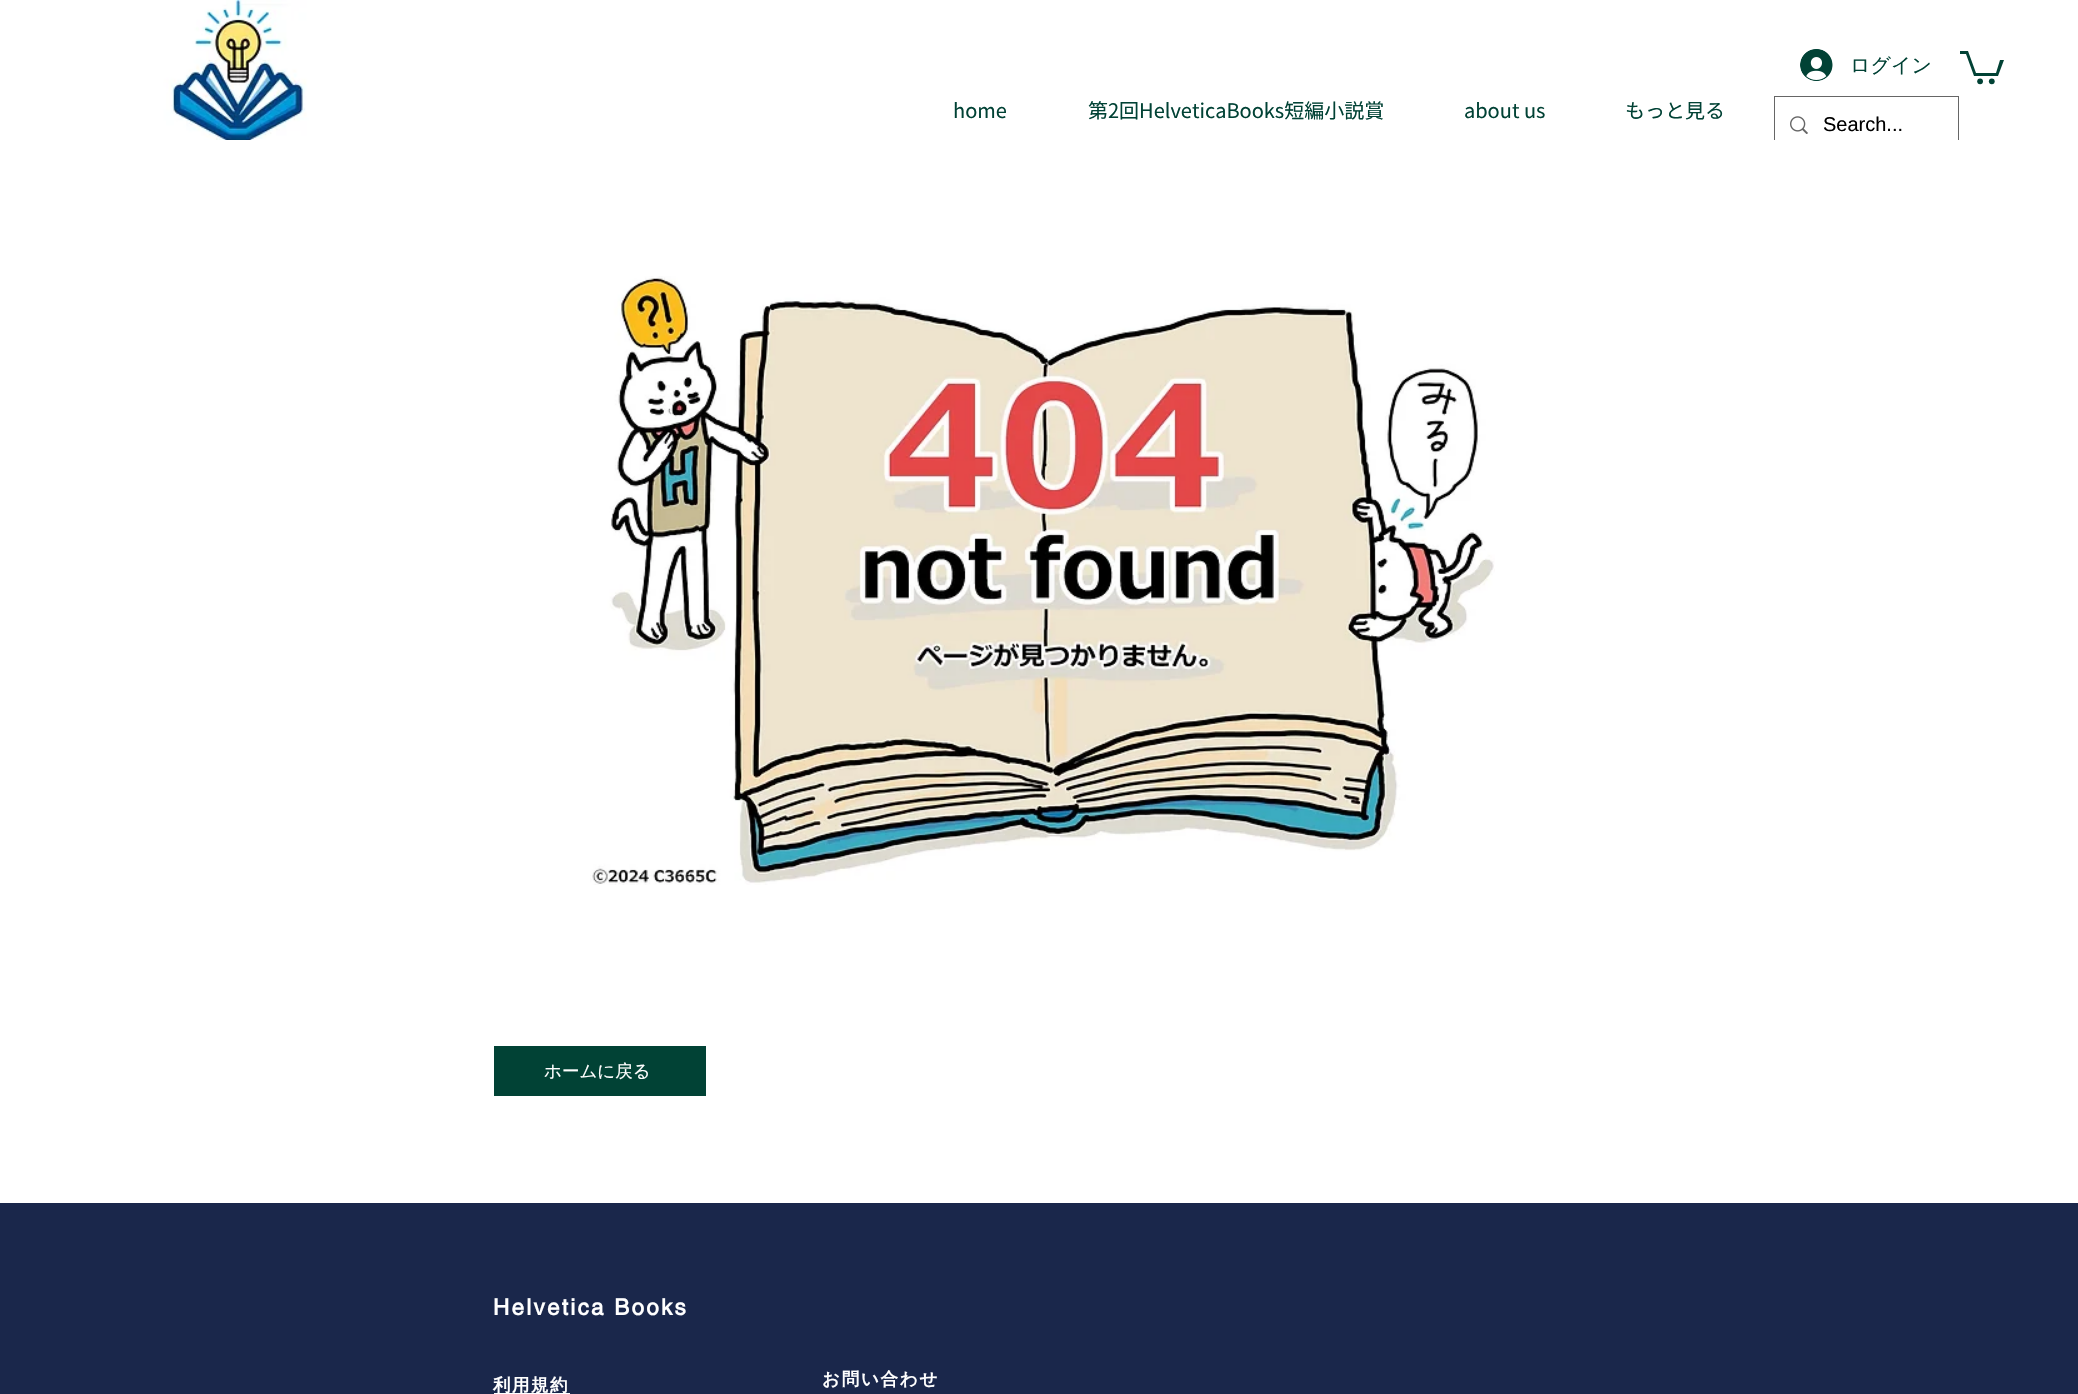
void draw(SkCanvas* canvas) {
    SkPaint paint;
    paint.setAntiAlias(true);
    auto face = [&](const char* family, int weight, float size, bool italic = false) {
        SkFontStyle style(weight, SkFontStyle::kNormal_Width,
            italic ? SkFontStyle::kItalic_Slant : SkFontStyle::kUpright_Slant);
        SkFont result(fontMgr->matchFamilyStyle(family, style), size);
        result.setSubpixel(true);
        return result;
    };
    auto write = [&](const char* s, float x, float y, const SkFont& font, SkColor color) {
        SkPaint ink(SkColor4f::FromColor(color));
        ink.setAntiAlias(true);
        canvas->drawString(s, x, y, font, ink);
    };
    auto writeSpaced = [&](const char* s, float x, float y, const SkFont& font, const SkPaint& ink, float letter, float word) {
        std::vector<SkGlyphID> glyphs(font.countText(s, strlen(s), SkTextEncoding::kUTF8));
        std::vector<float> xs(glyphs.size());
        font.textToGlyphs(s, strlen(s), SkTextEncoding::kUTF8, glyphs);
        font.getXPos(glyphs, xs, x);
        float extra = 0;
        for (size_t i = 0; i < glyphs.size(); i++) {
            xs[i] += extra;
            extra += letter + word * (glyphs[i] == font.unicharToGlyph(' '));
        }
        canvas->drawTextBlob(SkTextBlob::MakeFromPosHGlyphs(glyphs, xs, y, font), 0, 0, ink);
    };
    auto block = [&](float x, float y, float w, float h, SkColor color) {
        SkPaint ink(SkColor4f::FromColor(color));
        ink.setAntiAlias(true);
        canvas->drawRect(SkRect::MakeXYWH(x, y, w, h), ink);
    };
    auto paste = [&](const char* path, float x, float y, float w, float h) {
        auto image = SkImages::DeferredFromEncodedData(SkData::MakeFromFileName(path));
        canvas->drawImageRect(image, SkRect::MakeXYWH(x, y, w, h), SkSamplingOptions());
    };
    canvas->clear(SK_ColorWHITE);
    paste("pic1.png", 156, 0, 165, 140);
    paste("pic2.png", 1800, 49, 33, 32);
    auto kFont1 = face("WenQuanYi Zen Hei", 500, 20);
    write("ログイン", 1850, 72, kFont1, SkColorSetRGB(1, 66, 53));
    paint.setColor(SkColorSetRGB(1, 66, 53));
    canvas->drawPath(SkPathBuilder().moveTo(2004, 60).lineTo(1998, 76).lineTo(1974, 76).lineTo(1966, 54).lineTo(1960, 54).lineTo(1960, 51).lineTo(1968, 51).lineTo(1976, 73).lineTo(1996, 73).lineTo(2000, 60).detach(), paint);
    canvas->drawCircle(1991.8f, 81.3f, 2.9f, paint);
    canvas->drawCircle(1980.1f, 81.3f, 2.9f, paint);
    auto kFont2 = face("Noto Sans JP", 400, 20);
    write("home", 953, 118, kFont2, SkColorSetRGB(1, 66, 53));
    write("第2回HelveticaBooks短編小説賞", 1088, 118, kFont2, SkColorSetRGB(1, 66, 53));
    write("about us", 1464, 118, kFont2, SkColorSetRGB(1, 66, 53));
    write("もっと見る", 1625, 118, kFont2, SkColorSetRGB(1, 66, 53));
    paint.setStyle(SkPaint::kStroke_Style);
    paint.setStrokeWidth(1);
    paint.setColor(SkColorSetRGB(102, 102, 102));
    canvas->drawRect(SkRect::MakeXYWH(1774.5f, 96.5f, 184, 56), paint);
    paste("pic3.png", 1790, 116, 18, 18);
    auto kFont3 = face("Liberation Sans", 400, 20);
    write("Search...", 1823, 131, kFont3, SK_ColorBLACK);
    block(1774, 140, 185, 13, SK_ColorWHITE);
    paste("pic4.png", 590, 276, 905, 609);
    block(494, 1046, 212, 50, SkColorSetRGB(1, 66, 53));
    auto kFont4 = face("WenQuanYi Zen Hei", 500, 17.5f);
    write("ホームに戻る", 544, 1077, kFont4, SK_ColorWHITE);
    block(0, 1203, 2078, 191, SkColorSetRGB(26, 39, 75));
    auto kFont5 = face("helvetica", 700, 22.5f);
    paint.setStyle(SkPaint::kFill_Style);
    paint.setColor(SK_ColorWHITE);
    writeSpaced("Helvetica Books", 493, 1315, kFont5, paint, 2.25f, 0);
    block(494, 1393, 76, 1, SK_ColorWHITE);
    auto kFont6 = face("WenQuanYi Zen Hei", 700, 17.5f);
    writeSpaced("利用規約", 493, 1391, kFont6, paint, 1.5f, 0);
    writeSpaced("お問い合わせ", 822, 1385, kFont6, paint, 1.75f, 0);
}
